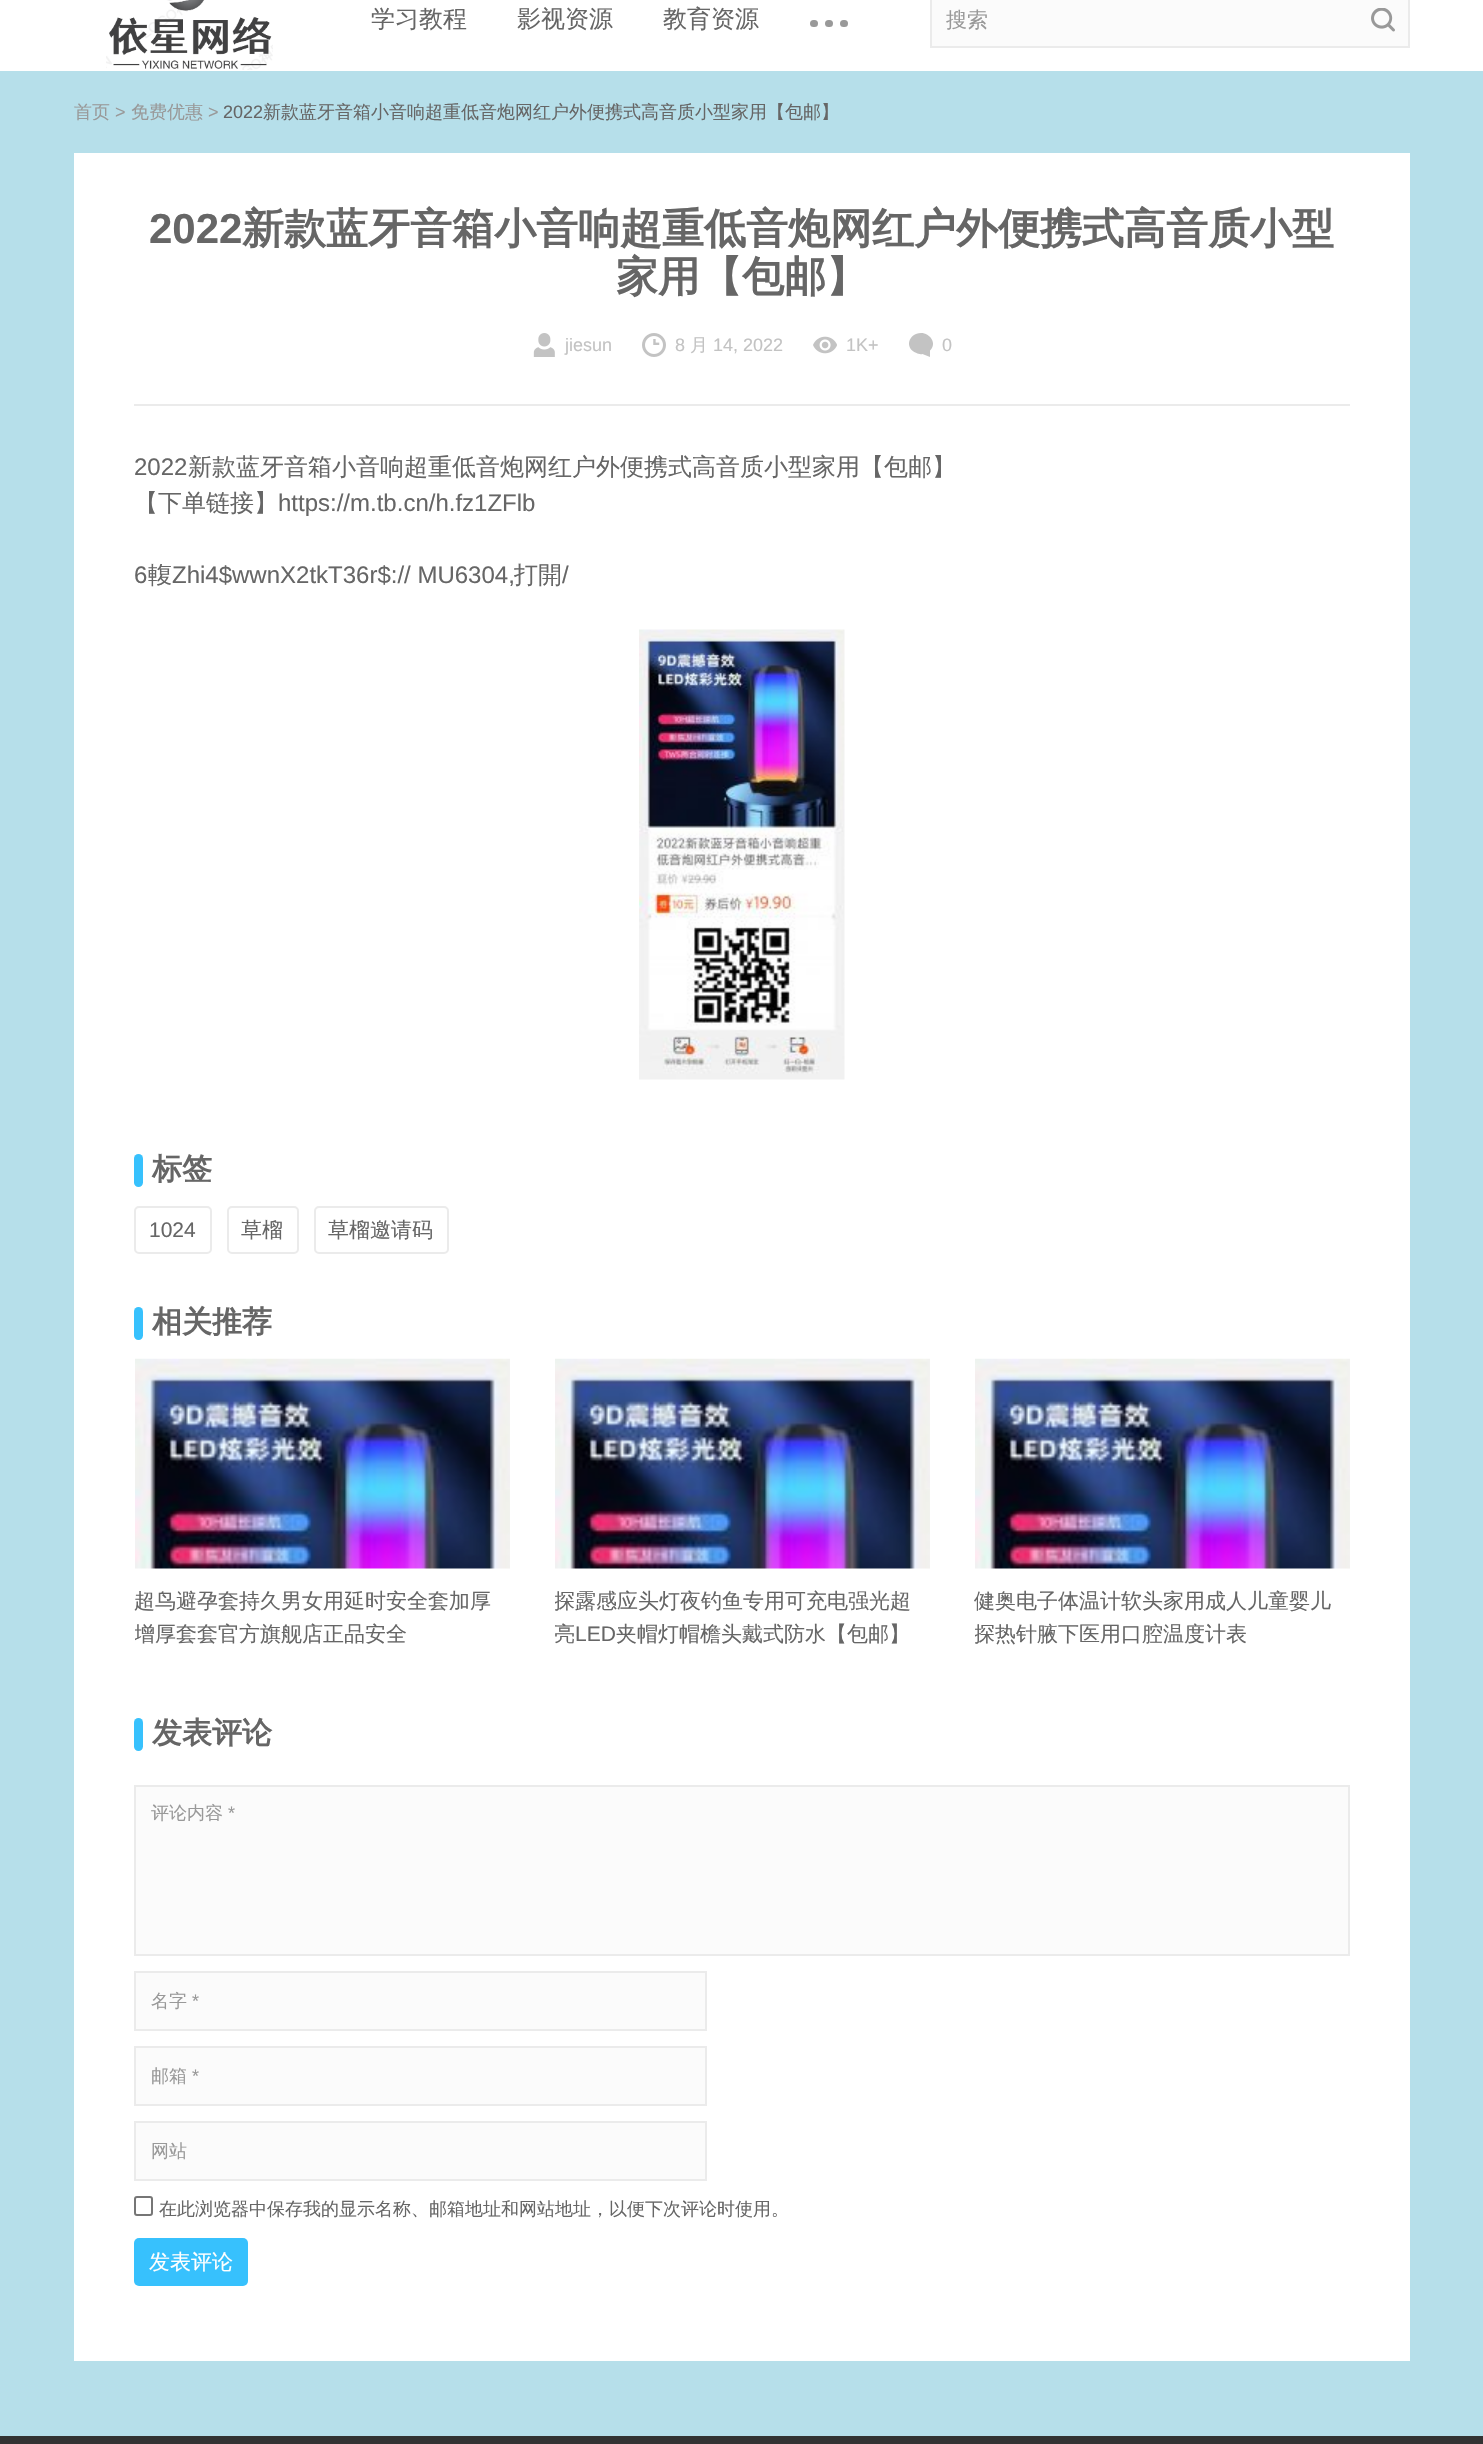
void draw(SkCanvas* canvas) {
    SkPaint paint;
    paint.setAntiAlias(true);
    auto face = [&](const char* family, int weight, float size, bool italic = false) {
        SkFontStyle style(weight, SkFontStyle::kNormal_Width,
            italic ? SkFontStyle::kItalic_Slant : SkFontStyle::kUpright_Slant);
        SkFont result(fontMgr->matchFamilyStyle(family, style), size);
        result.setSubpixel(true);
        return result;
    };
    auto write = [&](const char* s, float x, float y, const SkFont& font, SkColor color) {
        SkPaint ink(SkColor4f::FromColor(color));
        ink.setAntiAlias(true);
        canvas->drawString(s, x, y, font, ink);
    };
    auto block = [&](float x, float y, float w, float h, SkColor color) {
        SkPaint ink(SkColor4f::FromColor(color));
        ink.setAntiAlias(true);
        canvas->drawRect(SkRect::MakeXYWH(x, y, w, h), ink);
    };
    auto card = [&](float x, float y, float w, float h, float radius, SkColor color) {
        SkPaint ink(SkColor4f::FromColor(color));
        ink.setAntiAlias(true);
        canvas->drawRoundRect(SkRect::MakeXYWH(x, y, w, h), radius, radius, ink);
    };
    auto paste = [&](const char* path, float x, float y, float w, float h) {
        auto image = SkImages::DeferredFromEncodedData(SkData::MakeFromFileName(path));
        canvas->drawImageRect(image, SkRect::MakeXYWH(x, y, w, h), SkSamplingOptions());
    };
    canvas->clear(SkColorSetRGB(182, 223, 234));
    block(0, 0, 1483, 71, SK_ColorWHITE);
    paste("pic1.png", 106, 0, 167, 70);
    auto kFont1 = face("WenQuanYi Zen Hei", 500, 24);
    write("学习教程", 371, 27, kFont1, SkColorSetRGB(102, 102, 102));
    write("影视资源", 517, 27, kFont1, SkColorSetRGB(102, 102, 102));
    write("教育资源", 663, 27, kFont1, SkColorSetRGB(102, 102, 102));
    card(810, 20, 8, 7, 3.5f, SkColorSetRGB(153, 153, 153));
    card(825, 20, 8, 7, 3.5f, SkColorSetRGB(153, 153, 153));
    card(840, 20, 8, 7, 3.5f, SkColorSetRGB(153, 153, 153));
    paint.setColor(SkColorSetRGB(251, 251, 251));
    canvas->drawRect(SkRect::MakeXYWH(931, -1, 478, 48), paint);
    paint.setStyle(SkPaint::kStroke_Style);
    paint.setStrokeWidth(2);
    paint.setColor(SkColorSetRGB(235, 235, 235));
    canvas->drawRect(SkRect::MakeXYWH(931, -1, 478, 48), paint);
    auto kFont2 = face("WenQuanYi Zen Hei", 500, 21);
    write("搜索", 946, 27, kFont2, SkColorSetRGB(153, 153, 153));
    paste("pic2.png", 1371, 8, 24, 24);
    auto kFont3 = face("WenQuanYi Zen Hei", 500, 18);
    write("首页", 74, 118, kFont3, SkColorSetRGB(153, 153, 153));
    auto kFont4 = face("Liberation Sans", 400, 18);
    write(">", 115, 118, kFont4, SkColorSetRGB(153, 153, 153));
    write("免费优惠", 131, 118, kFont3, SkColorSetRGB(153, 153, 153));
    write(">", 208, 118, kFont4, SkColorSetRGB(153, 153, 153));
    write("2022", 223, 118, kFont4, SkColorSetRGB(102, 102, 102));
    write("新款蓝牙音箱小音响超重低音炮网红户外便携式高音质小型家用【包邮】", 263, 118, kFont3, SkColorSetRGB(102, 102, 102));
    block(74, 153, 1336, 2208, SK_ColorWHITE);
    block(134, 404, 1216, 2, SkColorSetRGB(235, 235, 235));
    auto kFont5 = face("Liberation Sans", 700, 42);
    write("2022", 149, 243, kFont5, SkColorSetRGB(102, 102, 102));
    auto kFont6 = face("WenQuanYi Zen Hei", 700, 42);
    write("新款蓝牙音箱小音响超重低音炮网红户外便携式高音质小型", 242, 243, kFont6, SkColorSetRGB(102, 102, 102));
    write("家用【包邮】", 616, 291, kFont6, SkColorSetRGB(102, 102, 102));
    paste("pic3.png", 533, 333, 22, 24);
    write("jiesun", 565, 351, kFont4, SkColorSetRGB(195, 195, 195));
    paste("pic4.png", 642, 333, 24, 24);
    write("8", 675, 351, kFont4, SkColorSetRGB(195, 195, 195));
    write("月", 690, 351, kFont3, SkColorSetRGB(195, 195, 195));
    write("14, 2022", 713, 351, kFont4, SkColorSetRGB(195, 195, 195));
    paste("pic5.png", 813, 336, 24, 18);
    write("1K+", 846, 351, kFont4, SkColorSetRGB(195, 195, 195));
    paint.setStyle(SkPaint::kFill_Style);
    paint.setColor(SkColorSetRGB(195, 195, 195));
    canvas->drawPath(SkPathBuilder().moveTo(921, 333).cubicTo(908.5f, 333, 904, 348.5f, 916.5f, 353).cubicTo(918, 354, 920.5f, 354.5f, 922.5f, 354).lineTo(930, 357).lineTo(930, 350.5f).cubicTo(937.5f, 343.5f, 930, 333, 921, 333).close().detach(), paint);
    write("0", 942, 351, kFont4, SkColorSetRGB(195, 195, 195));
    auto kFont7 = face("Liberation Sans", 400, 24);
    write("2022", 134, 475, kFont7, SkColorSetRGB(102, 102, 102));
    write("新款蓝牙音箱小音响超重低音炮网红户外便携式高音质小型家用【包邮】", 188, 475, kFont1, SkColorSetRGB(102, 102, 102));
    write("【下单链接】", 134, 511, kFont1, SkColorSetRGB(102, 102, 102));
    write("https://m.tb.cn/h.fz1ZFlb", 278, 511, kFont7, SkColorSetRGB(102, 102, 102));
    write("6", 134, 583, kFont7, SkColorSetRGB(102, 102, 102));
    write("輹", 148, 583, kFont1, SkColorSetRGB(102, 102, 102));
    write("Zhi4$wwnX2tkT36r$:// MU6304,", 172, 583, kFont7, SkColorSetRGB(102, 102, 102));
    write("打開", 514, 583, kFont1, SkColorSetRGB(102, 102, 102));
    write("/", 562, 583, kFont7, SkColorSetRGB(102, 102, 102));
    paste("pic6.png", 639, 629, 206, 451);
    card(134, 1154, 9, 33, 4.5f, SkColorSetRGB(55, 193, 253));
    auto kFont8 = face("WenQuanYi Zen Hei", 700, 30);
    write("标签", 152, 1179, kFont8, SkColorSetRGB(102, 102, 102));
    paint.setStyle(SkPaint::kStroke_Style);
    paint.setColor(SkColorSetRGB(235, 235, 235));
    canvas->drawRoundRect(SkRect::MakeXYWH(135, 1207, 76, 46), 4, 4, paint);
    auto kFont9 = face("Liberation Sans", 400, 21);
    write("1024", 149, 1237, kFont9, SkColorSetRGB(102, 102, 102));
    canvas->drawRoundRect(SkRect::MakeXYWH(228, 1207, 70, 46), 4, 4, paint);
    write("草榴", 241, 1237, kFont2, SkColorSetRGB(102, 102, 102));
    canvas->drawRoundRect(SkRect::MakeXYWH(315, 1207, 133, 46), 4, 4, paint);
    write("草榴邀请码", 328, 1237, kFont2, SkColorSetRGB(102, 102, 102));
    card(134, 1307, 9, 33, 4.5f, SkColorSetRGB(55, 193, 253));
    write("相关推荐", 152, 1332, kFont8, SkColorSetRGB(102, 102, 102));
    paste("pic7.png", 135, 1358, 375, 211);
    write("超鸟避孕套持久男女用延时安全套加厚", 134, 1608, kFont2, SkColorSetRGB(102, 102, 102));
    canvas->save();
    canvas->clipRect(SkRect::MakeXYWH(135, 1584, 375, 66));
    write("增厚套套官方旗舰店正品安全", 134, 1641, kFont2, SkColorSetRGB(102, 102, 102));
    canvas->restore();
    paste("pic7.png", 555, 1358, 375, 211);
    canvas->save();
    canvas->clipRect(SkRect::MakeXYWH(555, 1584, 375, 66));
    write("探露感应头灯夜钓鱼专用可充电强光超", 554, 1608, kFont2, SkColorSetRGB(102, 102, 102));
    canvas->restore();
    write("亮", 554, 1641, kFont2, SkColorSetRGB(102, 102, 102));
    write("LED", 575, 1641, kFont9, SkColorSetRGB(102, 102, 102));
    write("夹帽灯帽檐头戴式防水【包邮】", 616, 1641, kFont2, SkColorSetRGB(102, 102, 102));
    paste("pic7.png", 975, 1358, 375, 211);
    write("健奥电子体温计软头家用成人儿童婴儿", 974, 1608, kFont2, SkColorSetRGB(102, 102, 102));
    canvas->save();
    canvas->clipRect(SkRect::MakeXYWH(975, 1584, 375, 66));
    write("探热针腋下医用口腔温度计表", 974, 1641, kFont2, SkColorSetRGB(102, 102, 102));
    canvas->restore();
    card(134, 1718, 9, 33, 4.5f, SkColorSetRGB(55, 193, 253));
    write("发表评论", 152, 1743, kFont8, SkColorSetRGB(102, 102, 102));
    paint.setStyle(SkPaint::kFill_Style);
    paint.setColor(SkColorSetRGB(251, 251, 251));
    canvas->drawRect(SkRect::MakeXYWH(135, 1786, 1214, 169), paint);
    paint.setStyle(SkPaint::kStroke_Style);
    paint.setColor(SkColorSetRGB(235, 235, 235));
    canvas->drawRect(SkRect::MakeXYWH(135, 1786, 1214, 169), paint);
    write("评论内容", 151, 1819, kFont3, SkColorSetRGB(153, 153, 153));
    write("*", 228, 1819, kFont4, SkColorSetRGB(153, 153, 153));
    paint.setStyle(SkPaint::kFill_Style);
    paint.setColor(SkColorSetRGB(251, 251, 251));
    canvas->drawRect(SkRect::MakeXYWH(135, 1972, 571, 58), paint);
    paint.setStyle(SkPaint::kStroke_Style);
    paint.setColor(SkColorSetRGB(235, 235, 235));
    canvas->drawRect(SkRect::MakeXYWH(135, 1972, 571, 58), paint);
    write("名字", 151, 2007, kFont3, SkColorSetRGB(153, 153, 153));
    write("*", 192, 2007, kFont4, SkColorSetRGB(153, 153, 153));
    paint.setStyle(SkPaint::kFill_Style);
    paint.setColor(SkColorSetRGB(251, 251, 251));
    canvas->drawRect(SkRect::MakeXYWH(135, 2047, 571, 58), paint);
    paint.setStyle(SkPaint::kStroke_Style);
    paint.setColor(SkColorSetRGB(235, 235, 235));
    canvas->drawRect(SkRect::MakeXYWH(135, 2047, 571, 58), paint);
    write("邮箱", 151, 2082, kFont3, SkColorSetRGB(153, 153, 153));
    write("*", 192, 2082, kFont4, SkColorSetRGB(153, 153, 153));
    paint.setStyle(SkPaint::kFill_Style);
    paint.setColor(SkColorSetRGB(251, 251, 251));
    canvas->drawRect(SkRect::MakeXYWH(135, 2122, 571, 58), paint);
    paint.setStyle(SkPaint::kStroke_Style);
    paint.setColor(SkColorSetRGB(235, 235, 235));
    canvas->drawRect(SkRect::MakeXYWH(135, 2122, 571, 58), paint);
    write("网站", 151, 2157, kFont3, SkColorSetRGB(153, 153, 153));
    paint.setColor(SkColorSetRGB(118, 118, 118));
    canvas->drawRoundRect(SkRect::MakeXYWH(135, 2197, 17, 18), 2, 2, paint);
    write("在此浏览器中保存我的显示名称、邮箱地址和网站地址，以便下次评论时使用。", 159, 2215, kFont3, SkColorSetRGB(102, 102, 102));
    card(134, 2238, 114, 48, 5, SkColorSetRGB(55, 193, 253));
    write("发表评论", 149, 2269, kFont2, SK_ColorWHITE);
    block(0, 2436, 1483, 8, SkColorSetRGB(51, 51, 51));
}
